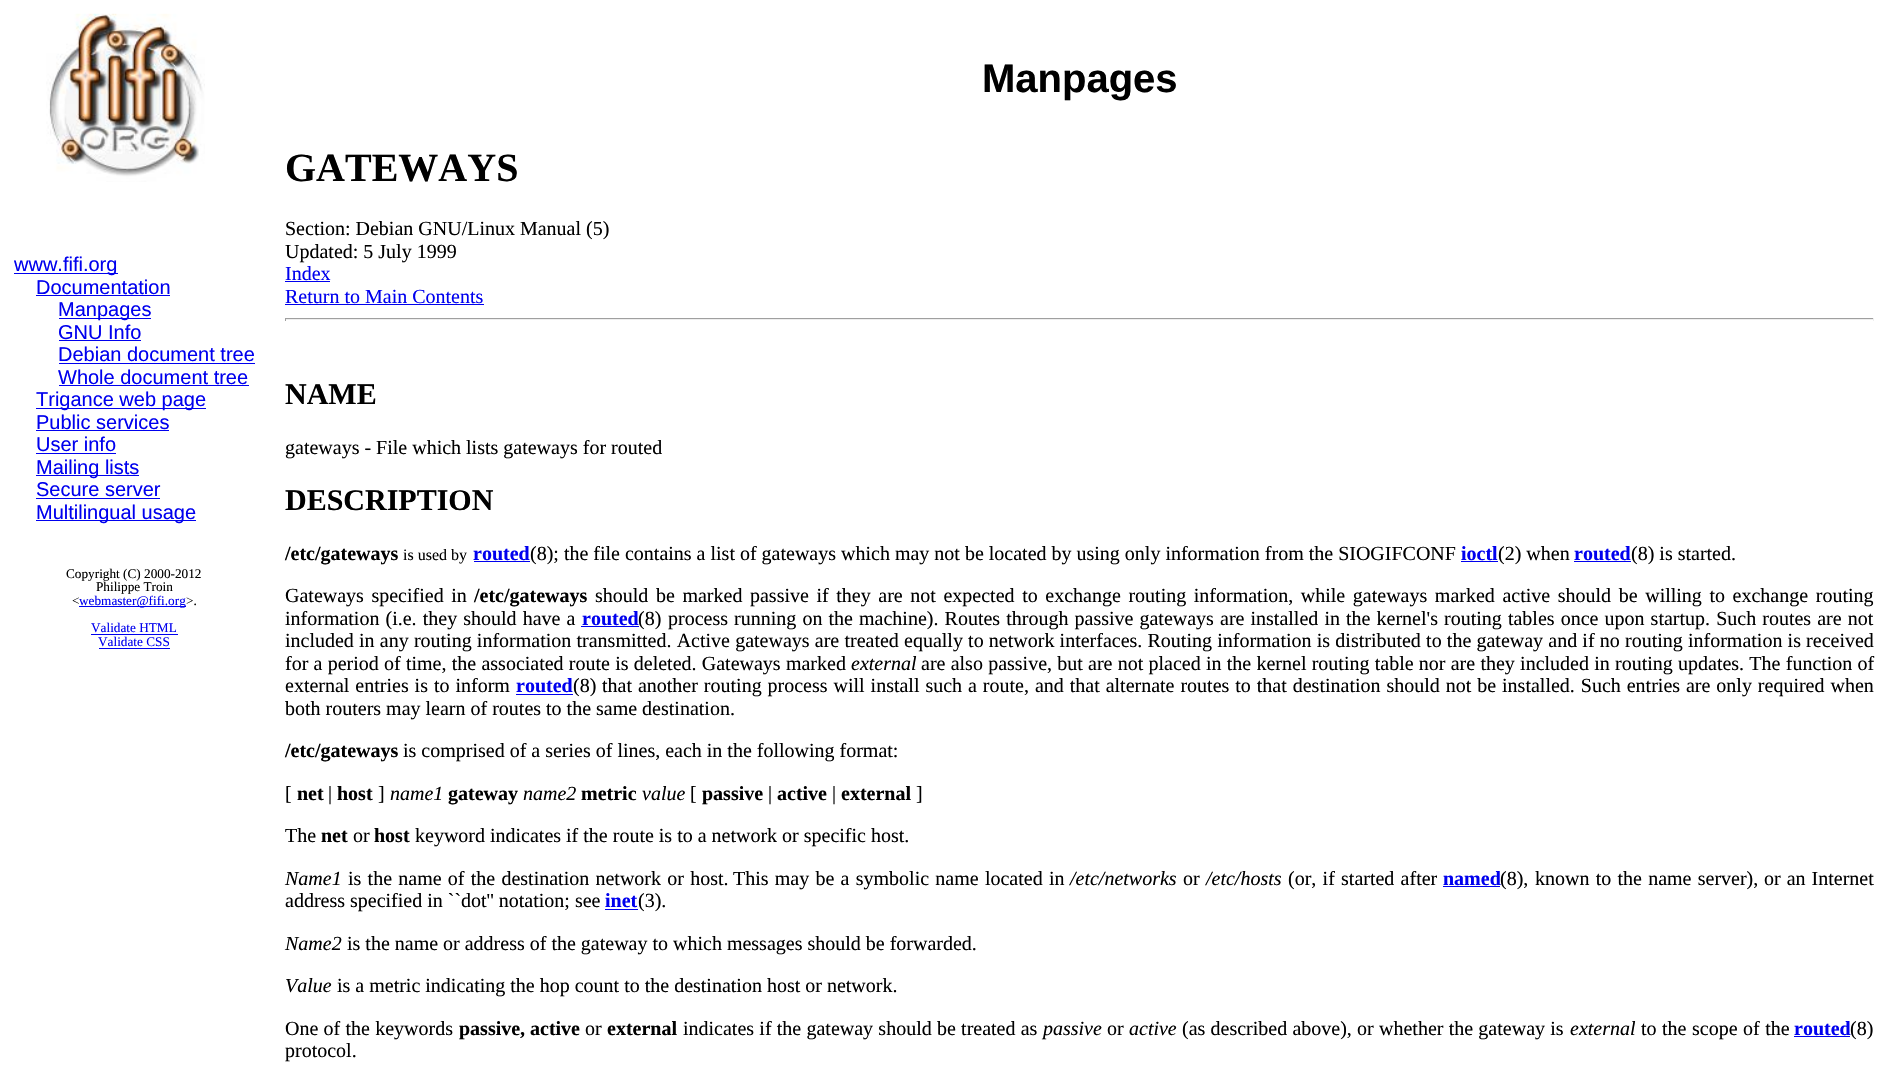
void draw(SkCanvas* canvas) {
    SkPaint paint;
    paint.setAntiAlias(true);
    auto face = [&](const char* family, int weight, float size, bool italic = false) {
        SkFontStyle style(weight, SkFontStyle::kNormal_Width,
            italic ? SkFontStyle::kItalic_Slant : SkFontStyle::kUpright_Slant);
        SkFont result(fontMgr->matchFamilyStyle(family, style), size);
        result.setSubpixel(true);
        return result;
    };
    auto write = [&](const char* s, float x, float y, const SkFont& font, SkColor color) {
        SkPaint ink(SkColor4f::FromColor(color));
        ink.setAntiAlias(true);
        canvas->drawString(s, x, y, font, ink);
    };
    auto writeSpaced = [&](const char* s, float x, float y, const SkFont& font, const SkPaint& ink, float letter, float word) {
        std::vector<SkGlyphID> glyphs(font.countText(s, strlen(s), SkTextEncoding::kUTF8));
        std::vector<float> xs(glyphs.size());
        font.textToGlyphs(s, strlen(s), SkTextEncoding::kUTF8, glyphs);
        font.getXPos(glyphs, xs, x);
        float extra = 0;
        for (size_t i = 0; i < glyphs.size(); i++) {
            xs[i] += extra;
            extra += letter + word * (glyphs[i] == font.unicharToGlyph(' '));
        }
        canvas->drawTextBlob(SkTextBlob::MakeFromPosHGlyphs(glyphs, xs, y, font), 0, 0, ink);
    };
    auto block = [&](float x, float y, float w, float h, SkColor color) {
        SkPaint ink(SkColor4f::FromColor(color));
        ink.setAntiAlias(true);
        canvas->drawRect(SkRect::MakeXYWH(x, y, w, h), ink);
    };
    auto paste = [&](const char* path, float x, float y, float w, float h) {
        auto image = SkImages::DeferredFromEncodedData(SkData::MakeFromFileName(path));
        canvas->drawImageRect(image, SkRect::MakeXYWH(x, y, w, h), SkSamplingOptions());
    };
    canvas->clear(SK_ColorWHITE);
    paste("pic1.png", 46, 13, 159, 169);
    block(14, 273, 104, 1, SkColorSetRGB(0, 0, 238));
    auto kFont1 = face("Liberation Sans", 400, 20);
    write("www.fifi.org", 14, 271, kFont1, SkColorSetRGB(0, 0, 238));
    write("Documentation", 36, 294, kFont1, SkColorSetRGB(0, 0, 238));
    block(36, 295, 134, 1, SkColorSetRGB(0, 0, 238));
    block(59, 318, 92, 1, SkColorSetRGB(0, 0, 238));
    write("Manpages", 58, 316, kFont1, SkColorSetRGB(0, 0, 238));
    write("GNU Info", 58, 339, kFont1, SkColorSetRGB(0, 0, 238));
    block(59, 340, 82, 1, SkColorSetRGB(0, 0, 238));
    write("Debian document tree", 58, 361, kFont1, SkColorSetRGB(0, 0, 238));
    block(59, 363, 196, 1, SkColorSetRGB(0, 0, 238));
    write("Whole document tree", 58, 384, kFont1, SkColorSetRGB(0, 0, 238));
    block(59, 385, 190, 1, SkColorSetRGB(0, 0, 238));
    block(36, 408, 170, 1, SkColorSetRGB(0, 0, 238));
    write("Trigance web page", 36, 406, kFont1, SkColorSetRGB(0, 0, 238));
    write("Public services", 36, 429, kFont1, SkColorSetRGB(0, 0, 238));
    block(36, 430, 133, 1, SkColorSetRGB(0, 0, 238));
    write("User info", 36, 451, kFont1, SkColorSetRGB(0, 0, 238));
    block(36, 453, 80, 1, SkColorSetRGB(0, 0, 238));
    block(36, 475, 103, 1, SkColorSetRGB(0, 0, 238));
    write("Mailing lists", 36, 474, kFont1, SkColorSetRGB(0, 0, 238));
    write("Secure server", 36, 496, kFont1, SkColorSetRGB(0, 0, 238));
    block(36, 498, 124, 1, SkColorSetRGB(0, 0, 238));
    block(36, 520, 160, 1, SkColorSetRGB(0, 0, 238));
    write("Multilingual usage", 36, 519, kFont1, SkColorSetRGB(0, 0, 238));
    auto kFont2 = face("Liberation Serif", 400, 13.25f);
    write("Copyright (C) 2000-2012", 66, 578, kFont2, SK_ColorBLACK);
    write("Philippe Troin", 96, 591, kFont2, SK_ColorBLACK);
    write("<", 72, 605, kFont2, SK_ColorBLACK);
    block(79, 606, 107, 1, SkColorSetRGB(0, 0, 238));
    write("webmaster@fifi.org", 79, 605, kFont2, SkColorSetRGB(0, 0, 238));
    write(">.", 186, 605, kFont2, SK_ColorBLACK);
    write("Validate HTML", 91, 632, kFont2, SkColorSetRGB(0, 0, 238));
    block(91, 634, 87, 1, SkColorSetRGB(0, 0, 238));
    write("Validate CSS", 98, 646, kFont2, SkColorSetRGB(0, 0, 238));
    block(99, 648, 71, 1, SkColorSetRGB(0, 0, 238));
    auto kFont3 = face("Liberation Sans", 700, 40);
    write("Manpages", 982, 92, kFont3, SK_ColorBLACK);
    auto kFont4 = face("Liberation Serif", 700, 40);
    write("GATEWAYS", 285, 181, kFont4, SK_ColorBLACK);
    auto kFont5 = face("Liberation Serif", 400, 20);
    write("Section: Debian GNU/Linux Manual (5)", 285, 235, kFont5, SK_ColorBLACK);
    write("Updated: 5 July 1999", 285, 258, kFont5, SK_ColorBLACK);
    write("Index", 285, 280, kFont5, SkColorSetRGB(0, 0, 238));
    block(285, 281, 45, 1, SkColorSetRGB(0, 0, 238));
    write("Return to Main Contents", 285, 303, kFont5, SkColorSetRGB(0, 0, 238));
    block(285, 304, 199, 1, SkColorSetRGB(0, 0, 238));
    block(285, 318, 1589, 1, SkColorSetRGB(159, 159, 159));
    block(1873, 318, 1, 3, SkColorSetRGB(238, 238, 238));
    block(285, 319, 1589, 1, SkColorSetRGB(238, 238, 238));
    block(285, 318, 1, 3, SkColorSetRGB(159, 159, 159));
    auto kFont6 = face("Liberation Serif", 700, 30);
    write("NAME", 285, 404, kFont6, SK_ColorBLACK);
    write("gateways - File which lists gateways for routed", 285, 454, kFont5, SK_ColorBLACK);
    write("DESCRIPTION", 285, 510, kFont6, SK_ColorBLACK);
    auto kFont7 = face("Liberation Serif", 700, 20);
    write("/etc/gateways", 285, 560, kFont7, SK_ColorBLACK);
    auto kFont8 = face("Liberation Serif", 400, 16);
    write("is used by", 403, 560, kFont8, SK_ColorBLACK);
    write("routed", 473, 560, kFont7, SkColorSetRGB(0, 0, 238));
    block(474, 561, 56, 1, SkColorSetRGB(0, 0, 238));
    write("(8); the file contains a list of gateways which may not be located by using only information from the SIOGIFCONF", 530, 560, kFont5, SK_ColorBLACK);
    write("ioctl", 1461, 560, kFont7, SkColorSetRGB(0, 0, 238));
    block(1461, 561, 37, 1, SkColorSetRGB(0, 0, 238));
    write("(2) when", 1498, 560, kFont5, SK_ColorBLACK);
    write("routed", 1574, 560, kFont7, SkColorSetRGB(0, 0, 238));
    block(1574, 561, 57, 1, SkColorSetRGB(0, 0, 238));
    write("(8) is started.", 1631, 560, kFont5, SK_ColorBLACK);
    paint.setColor(SK_ColorBLACK);
    writeSpaced("Gateways specified in", 285, 602, kFont5, paint, 0, 2.6f);
    write("/etc/gateways", 474, 602, kFont7, SK_ColorBLACK);
    writeSpaced("should be marked passive if they are not expected to exchange routing information, while gateways marked active should be willing to exchange routing", 595, 602, kFont5, paint, 0, 2.6f);
    writeSpaced("information (i.e. they should have a", 285, 625, kFont5, paint, 0, 1.1f);
    write("routed", 582, 625, kFont7, SkColorSetRGB(0, 0, 238));
    block(581, 626, 58, 1, SkColorSetRGB(0, 0, 238));
    write("(8)", 638, 625, kFont5, SK_ColorBLACK);
    writeSpaced("process running on the machine). Routes through passive gateways are installed in the kernel's routing tables once upon startup. Such routes are not", 668, 625, kFont5, paint, 0, 1.1f);
    writeSpaced("included in any routing information transmitted. Active gateways are treated equally to network interfaces. Routing information is distributed to the gateway and if no routing information is received", 285, 647, kFont5, paint, 0, 0.2f);
    writeSpaced("for a period of time, the associated route is deleted. Gateways marked", 285, 670, kFont5, paint, 0, 0.25f);
    auto kFont9 = face("Liberation Serif", 400, 20, true);
    write("external", 851, 670, kFont9, SK_ColorBLACK);
    writeSpaced("are also passive, but are not placed in the kernel routing table nor are they included in routing updates. The function of", 921, 670, kFont5, paint, 0, 0.25f);
    writeSpaced("external entries is to inform", 285, 692, kFont5, paint, 0, 0.95f);
    write("routed", 516, 692, kFont7, SkColorSetRGB(0, 0, 238));
    block(516, 694, 57, 1, SkColorSetRGB(0, 0, 238));
    write("(8)", 573, 692, kFont5, SK_ColorBLACK);
    writeSpaced("that another routing process will install such a route, and that alternate routes to that destination should not be installed. Such entries are only required when", 602, 692, kFont5, paint, 0, 0.95f);
    write("both routers may learn of routes to the same destination.", 285, 715, kFont5, SK_ColorBLACK);
    write("/etc/gateways", 285, 757, kFont7, SK_ColorBLACK);
    write("is comprised of a series of lines, each in the following format:", 403, 757, kFont5, SK_ColorBLACK);
    write("[", 285, 800, kFont5, SK_ColorBLACK);
    write("net", 297, 800, kFont7, SK_ColorBLACK);
    write("|", 328, 800, kFont5, SK_ColorBLACK);
    write("host", 337, 800, kFont7, SK_ColorBLACK);
    write("]", 378, 800, kFont5, SK_ColorBLACK);
    write("name1", 390, 800, kFont9, SK_ColorBLACK);
    write("gateway", 448, 800, kFont7, SK_ColorBLACK);
    write("name2", 523, 800, kFont9, SK_ColorBLACK);
    write("metric", 581, 800, kFont7, SK_ColorBLACK);
    write("value", 642, 800, kFont9, SK_ColorBLACK);
    write("[", 690, 800, kFont5, SK_ColorBLACK);
    write("passive", 702, 800, kFont7, SK_ColorBLACK);
    write("|", 768, 800, kFont5, SK_ColorBLACK);
    write("active", 777, 800, kFont7, SK_ColorBLACK);
    write("|", 832, 800, kFont5, SK_ColorBLACK);
    write("external", 841, 800, kFont7, SK_ColorBLACK);
    write("]", 916, 800, kFont5, SK_ColorBLACK);
    write("The", 285, 842, kFont5, SK_ColorBLACK);
    write("net", 321, 842, kFont7, SK_ColorBLACK);
    write("or", 353, 842, kFont5, SK_ColorBLACK);
    write("host", 374, 842, kFont7, SK_ColorBLACK);
    write("keyword indicates if the route is to a network or specific host.", 415, 842, kFont5, SK_ColorBLACK);
    write("Name1", 285, 885, kFont9, SK_ColorBLACK);
    writeSpaced("is the name of the destination network or host.", 348, 885, kFont5, paint, 0, 1.25f);
    writeSpaced("This may be a symbolic name located in", 733, 885, kFont5, paint, 0, 1.25f);
    write("/etc/networks", 1070, 885, kFont9, SK_ColorBLACK);
    write("or", 1183, 885, kFont5, SK_ColorBLACK);
    write("/etc/hosts", 1206, 885, kFont9, SK_ColorBLACK);
    writeSpaced("(or, if started after", 1288, 885, kFont5, paint, 0, 1.25f);
    write("named", 1443, 885, kFont7, SkColorSetRGB(0, 0, 238));
    block(1443, 886, 57, 1, SkColorSetRGB(0, 0, 238));
    write("(8),", 1500, 885, kFont5, SK_ColorBLACK);
    writeSpaced("known to the name server),", 1535, 885, kFont5, paint, 0, 1.25f);
    writeSpaced("or an Internet", 1764, 885, kFont5, paint, 0, 1);
    write("address specified in ``dot'' notation; see", 285, 907, kFont5, SK_ColorBLACK);
    write("inet", 605, 907, kFont7, SkColorSetRGB(0, 0, 238));
    block(605, 909, 33, 1, SkColorSetRGB(0, 0, 238));
    write("(3).", 638, 907, kFont5, SK_ColorBLACK);
    write("Name2", 285, 950, kFont9, SK_ColorBLACK);
    write("is the name or address of the gateway to which messages should be forwarded.", 347, 950, kFont5, SK_ColorBLACK);
    write("Value", 285, 992, kFont9, SK_ColorBLACK);
    write("is a metric indicating the hop count to the destination host or network.", 337, 992, kFont5, SK_ColorBLACK);
    writeSpaced("One of the keywords", 285, 1035, kFont5, paint, 0, 0.25f);
    write("passive,", 459, 1035, kFont7, SK_ColorBLACK);
    write("active", 530, 1035, kFont7, SK_ColorBLACK);
    write("or", 585, 1035, kFont5, SK_ColorBLACK);
    write("external", 607, 1035, kFont7, SK_ColorBLACK);
    writeSpaced("indicates if the gateway should be treated as", 683, 1035, kFont5, paint, 0, 0.25f);
    write("passive", 1043, 1035, kFont9, SK_ColorBLACK);
    write("or", 1107, 1035, kFont5, SK_ColorBLACK);
    write("active", 1129, 1035, kFont9, SK_ColorBLACK);
    writeSpaced("(as described above), or whether the gateway is", 1182, 1035, kFont5, paint, 0, 0.25f);
    write("external", 1570, 1035, kFont9, SK_ColorBLACK);
    writeSpaced("to the scope of the", 1641, 1035, kFont5, paint, 0, 0.5f);
    write("routed", 1794, 1035, kFont7, SkColorSetRGB(0, 0, 238));
    block(1794, 1036, 56, 1, SkColorSetRGB(0, 0, 238));
    write("(8)", 1850, 1035, kFont5, SK_ColorBLACK);
    write("protocol.", 285, 1057, kFont5, SK_ColorBLACK);
}
